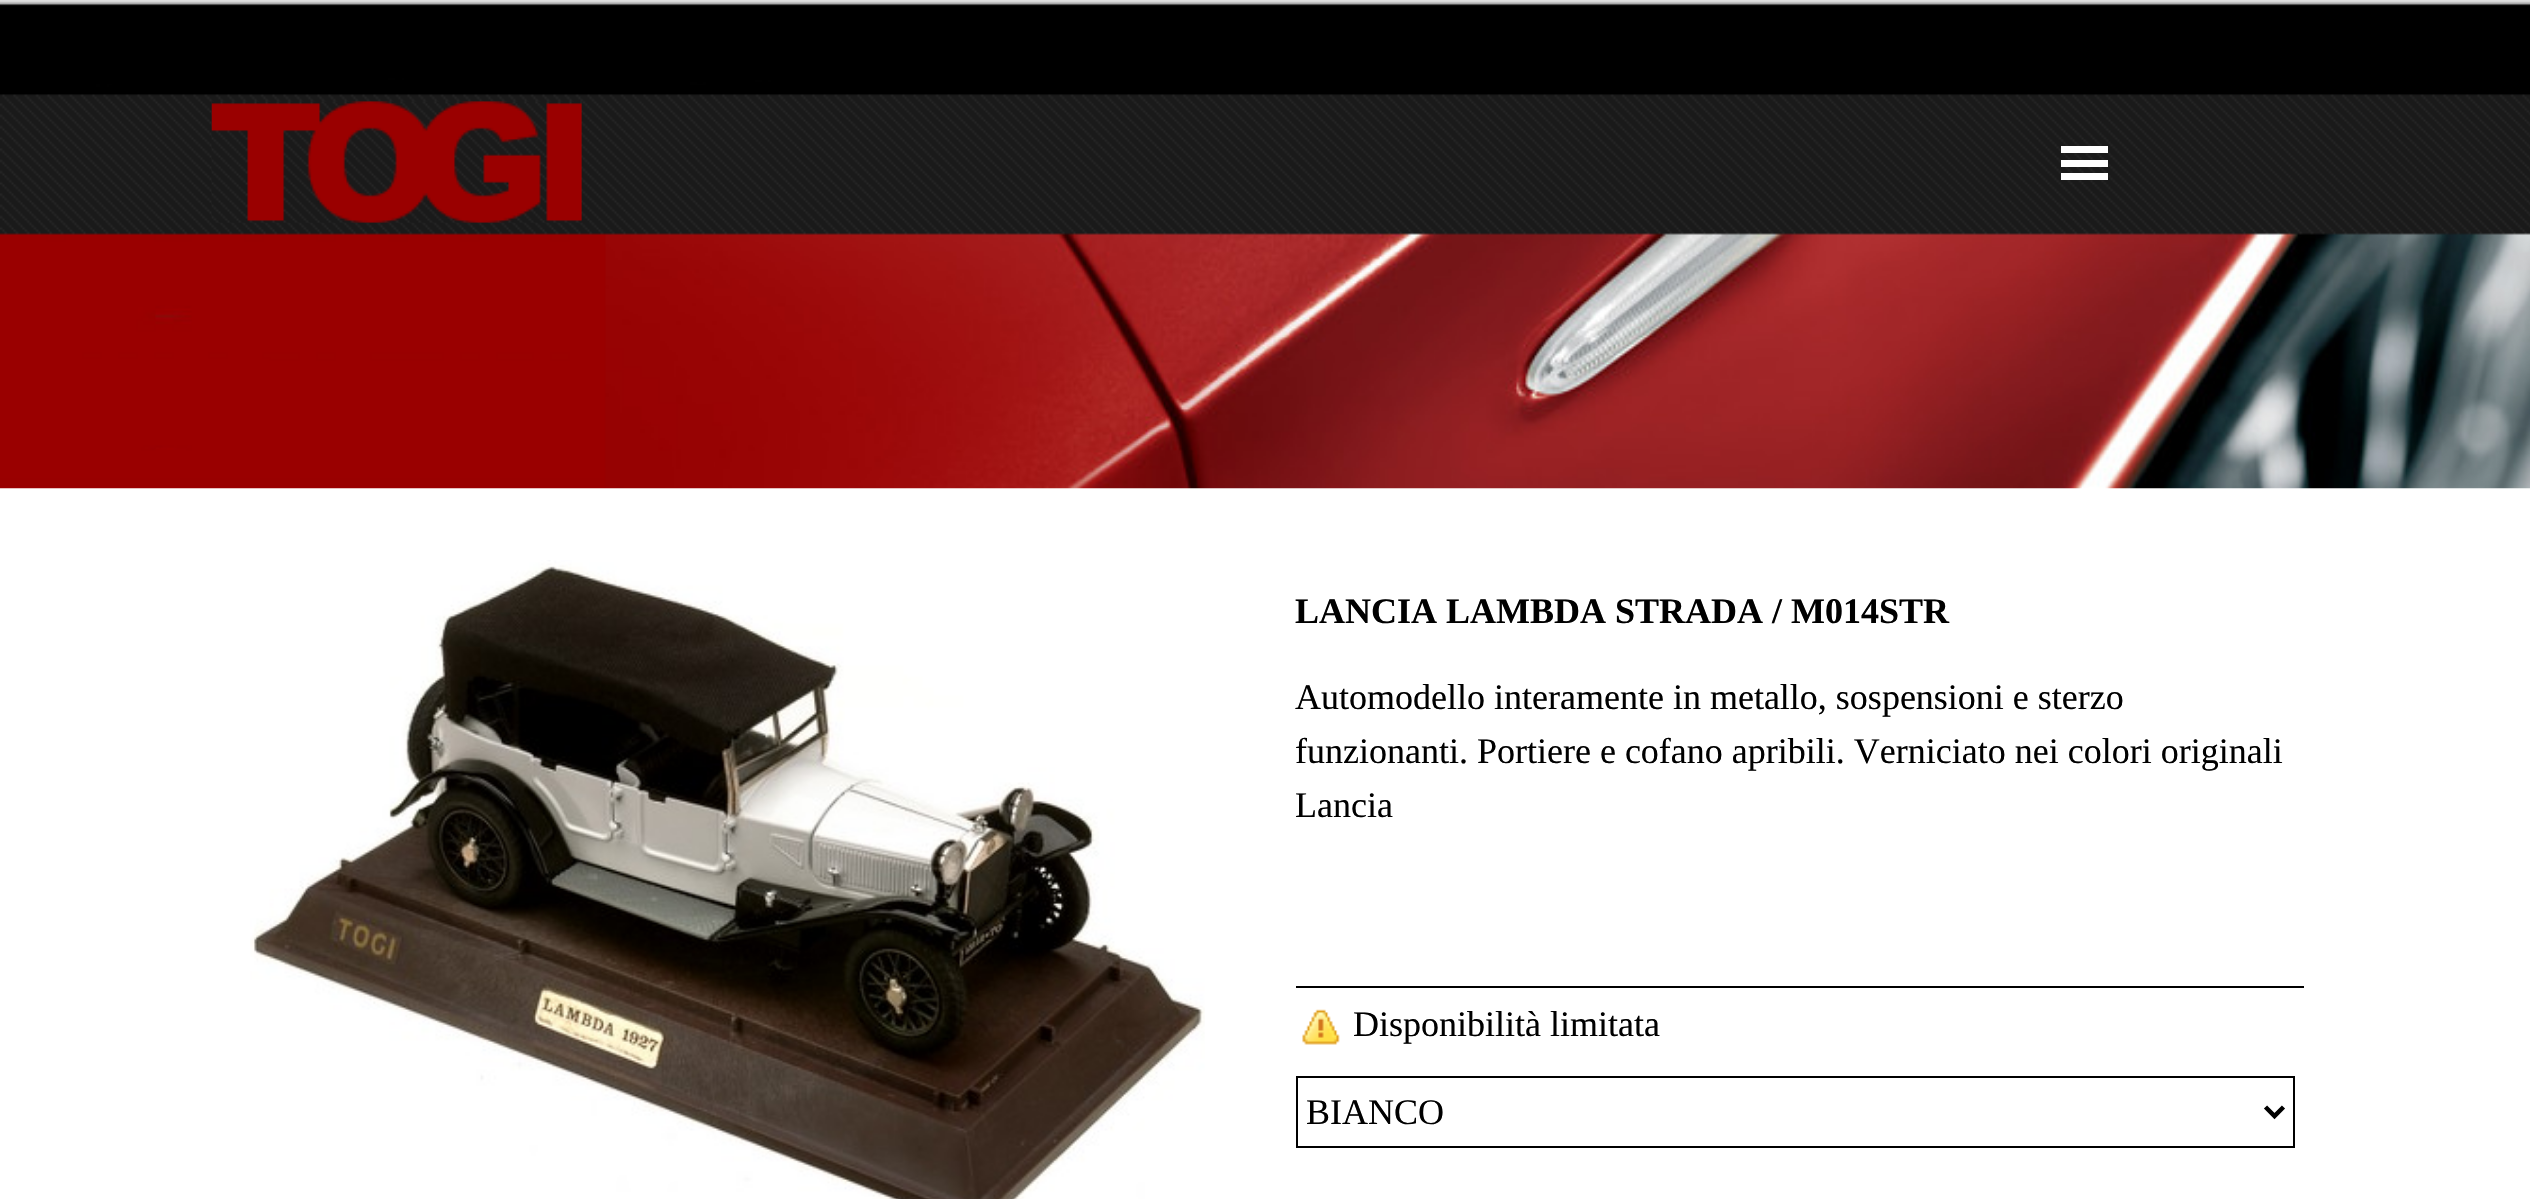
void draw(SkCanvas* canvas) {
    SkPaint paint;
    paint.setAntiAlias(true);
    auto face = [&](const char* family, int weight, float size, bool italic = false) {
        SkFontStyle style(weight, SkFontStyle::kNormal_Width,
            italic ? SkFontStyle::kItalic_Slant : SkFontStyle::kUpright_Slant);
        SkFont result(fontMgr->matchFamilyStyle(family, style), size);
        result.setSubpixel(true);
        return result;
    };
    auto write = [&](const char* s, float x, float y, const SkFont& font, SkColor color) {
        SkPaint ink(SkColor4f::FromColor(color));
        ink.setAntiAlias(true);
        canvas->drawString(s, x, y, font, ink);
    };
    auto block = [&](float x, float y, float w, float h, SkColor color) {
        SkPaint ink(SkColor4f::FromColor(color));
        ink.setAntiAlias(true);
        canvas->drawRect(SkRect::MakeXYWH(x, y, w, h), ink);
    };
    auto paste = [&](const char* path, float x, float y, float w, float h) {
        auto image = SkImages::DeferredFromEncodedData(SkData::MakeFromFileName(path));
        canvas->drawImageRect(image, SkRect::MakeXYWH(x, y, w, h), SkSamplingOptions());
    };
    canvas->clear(SK_ColorWHITE);
    paste("pic1.png", 0, 0, 2530, 489);
    paste("pic2.png", 211, 101, 371, 122);
    block(2061, 146, 47, 7, SK_ColorWHITE);
    block(2061, 160, 47, 7, SK_ColorWHITE);
    block(2061, 173, 47, 7, SK_ColorWHITE);
    paste("pic3.png", 250, 560, 955, 639);
    auto kFont1 = face("Liberation Serif", 700, 36);
    write("LANCIA LAMBDA STRADA / M014STR", 1295, 623, kFont1, SK_ColorBLACK);
    auto kFont2 = face("Liberation Serif", 400, 36);
    write("Automodello interamente in metallo, sospensioni e sterzo", 1295, 709, kFont2, SK_ColorBLACK);
    write("funzionanti. Portiere e cofano apribili. Verniciato nei colori originali", 1295, 763, kFont2, SK_ColorBLACK);
    write("Lancia", 1295, 817, kFont2, SK_ColorBLACK);
    block(1296, 986, 1008, 2, SK_ColorBLACK);
    paste("pic4.png", 1302, 1009, 38, 36);
    write("Disponibilità limitata", 1353, 1036, kFont2, SK_ColorBLACK);
    paint.setStyle(SkPaint::kStroke_Style);
    paint.setStrokeWidth(2);
    paint.setColor(SK_ColorBLACK);
    canvas->drawRect(SkRect::MakeXYWH(1297, 1077, 997, 70), paint);
    paint.setStrokeWidth(4.5f);
    canvas->drawPath(SkPathBuilder().moveTo(2265.5f, 1107).lineTo(2274.5f, 1116).lineTo(2283.5f, 1107).detach(), paint);
    write("BIANCO", 1306, 1124, kFont2, SK_ColorBLACK);
}
